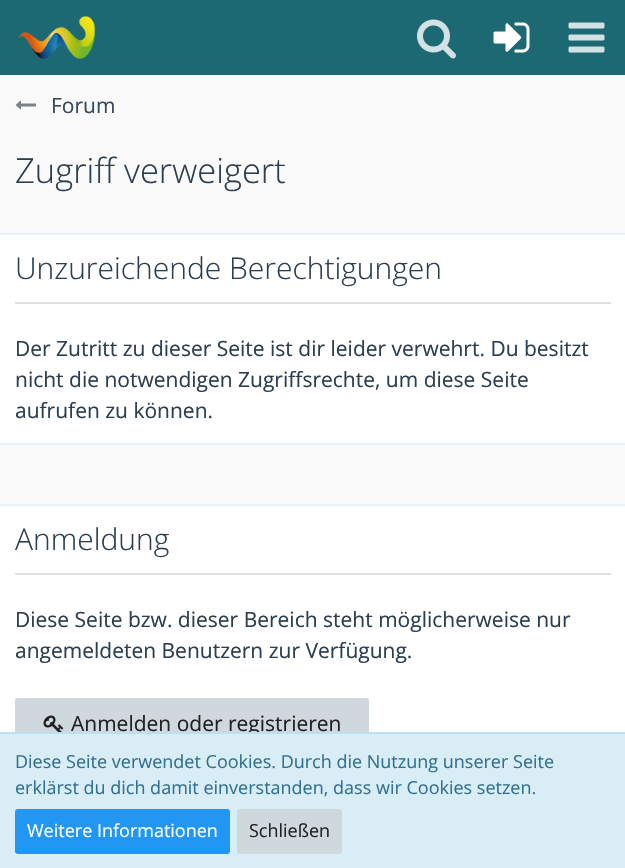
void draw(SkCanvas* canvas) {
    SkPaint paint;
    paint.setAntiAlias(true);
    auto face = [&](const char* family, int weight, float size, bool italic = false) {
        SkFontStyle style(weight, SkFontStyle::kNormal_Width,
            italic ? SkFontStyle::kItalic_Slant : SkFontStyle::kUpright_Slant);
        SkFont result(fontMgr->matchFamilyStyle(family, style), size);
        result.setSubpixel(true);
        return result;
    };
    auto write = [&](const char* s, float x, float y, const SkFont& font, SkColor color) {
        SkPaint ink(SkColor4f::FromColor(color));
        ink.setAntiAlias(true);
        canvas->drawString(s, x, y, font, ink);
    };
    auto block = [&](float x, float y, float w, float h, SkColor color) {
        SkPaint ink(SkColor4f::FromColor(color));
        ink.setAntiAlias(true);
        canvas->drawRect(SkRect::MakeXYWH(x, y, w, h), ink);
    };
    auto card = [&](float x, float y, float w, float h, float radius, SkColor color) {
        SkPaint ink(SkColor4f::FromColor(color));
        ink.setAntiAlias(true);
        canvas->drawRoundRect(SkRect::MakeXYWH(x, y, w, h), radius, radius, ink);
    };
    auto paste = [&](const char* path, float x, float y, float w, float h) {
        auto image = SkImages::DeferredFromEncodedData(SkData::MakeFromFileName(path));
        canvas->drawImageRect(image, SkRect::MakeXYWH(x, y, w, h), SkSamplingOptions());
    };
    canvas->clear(SkColorSetRGB(250, 250, 250));
    block(0, 0, 625, 75, SkColorSetRGB(28, 105, 115));
    paste("pic1.png", 18, 16, 78, 43);
    paste("pic2.png", 417, 19, 39, 40);
    paste("pic3.png", 493, 22, 37, 31);
    paste("pic4.png", 568, 22, 37, 31);
    paste("pic5.png", 15, 100, 21, 10);
    auto kFont1 = face("Open Sans", 400, 21);
    write("Forum", 51, 113, kFont1, SkColorSetRGB(52, 73, 94));
    auto kFont2 = face("Open Sans", 300, 34.5f);
    write("Zugriff verweigert", 15, 183, kFont2, SkColorSetRGB(44, 62, 80));
    block(0, 235, 625, 208, SK_ColorWHITE);
    block(0, 233, 625, 2, SkColorSetRGB(236, 241, 247));
    block(0, 443, 625, 2, SkColorSetRGB(236, 241, 247));
    block(15, 302, 596, 2, SkColorSetRGB(224, 224, 224));
    auto kFont3 = face("Open Sans", 300, 30);
    write("Unzureichende Berechtigungen", 15, 279, kFont3, SkColorSetRGB(44, 62, 80));
    write("Der Zutritt zu dieser Seite ist dir leider verwehrt. Du besitzt", 15, 356, kFont1, SkColorSetRGB(44, 62, 80));
    write("nicht die notwendigen Zugriffsrechte, um diese Seite", 15, 387, kFont1, SkColorSetRGB(44, 62, 80));
    write("aufrufen zu können.", 15, 418, kFont1, SkColorSetRGB(44, 62, 80));
    block(0, 506, 625, 226, SK_ColorWHITE);
    block(0, 504, 625, 2, SkColorSetRGB(236, 241, 247));
    block(15, 573, 596, 2, SkColorSetRGB(224, 224, 224));
    write("Anmeldung", 15, 550, kFont3, SkColorSetRGB(44, 62, 80));
    write("Diese Seite bzw. dieser Bereich steht möglicherweise nur", 15, 627, kFont1, SkColorSetRGB(44, 62, 80));
    write("angemeldeten Benutzern zur Verfügung.", 15, 658, kFont1, SkColorSetRGB(44, 62, 80));
    card(15, 698, 354, 54, 3, SkColorSetRGB(207, 216, 220));
    paste("pic6.png", 43, 715, 21, 17);
    write("Anmelden oder registrieren", 71, 731, kFont1, SkColorSetRGB(33, 33, 33));
    block(0, 734, 625, 134, SkColorSetRGB(217, 237, 247));
    block(0, 732, 625, 2, SkColorSetRGB(188, 223, 241));
    auto kFont4 = face("Open Sans", 400, 18);
    write("Diese Seite verwendet Cookies. Durch die Nutzung unserer Seite", 15, 768, kFont4, SkColorSetRGB(49, 112, 143));
    write("erklärst du dich damit einverstanden, dass wir Cookies setzen.", 15, 794, kFont4, SkColorSetRGB(49, 112, 143));
    card(15, 809, 215, 45, 3, SkColorSetRGB(33, 150, 243));
    write("Weitere Informationen", 27, 837, kFont4, SK_ColorWHITE);
    card(237, 809, 105, 45, 3, SkColorSetRGB(207, 216, 220));
    write("Schließen", 249, 837, kFont4, SkColorSetRGB(33, 33, 33));
}
